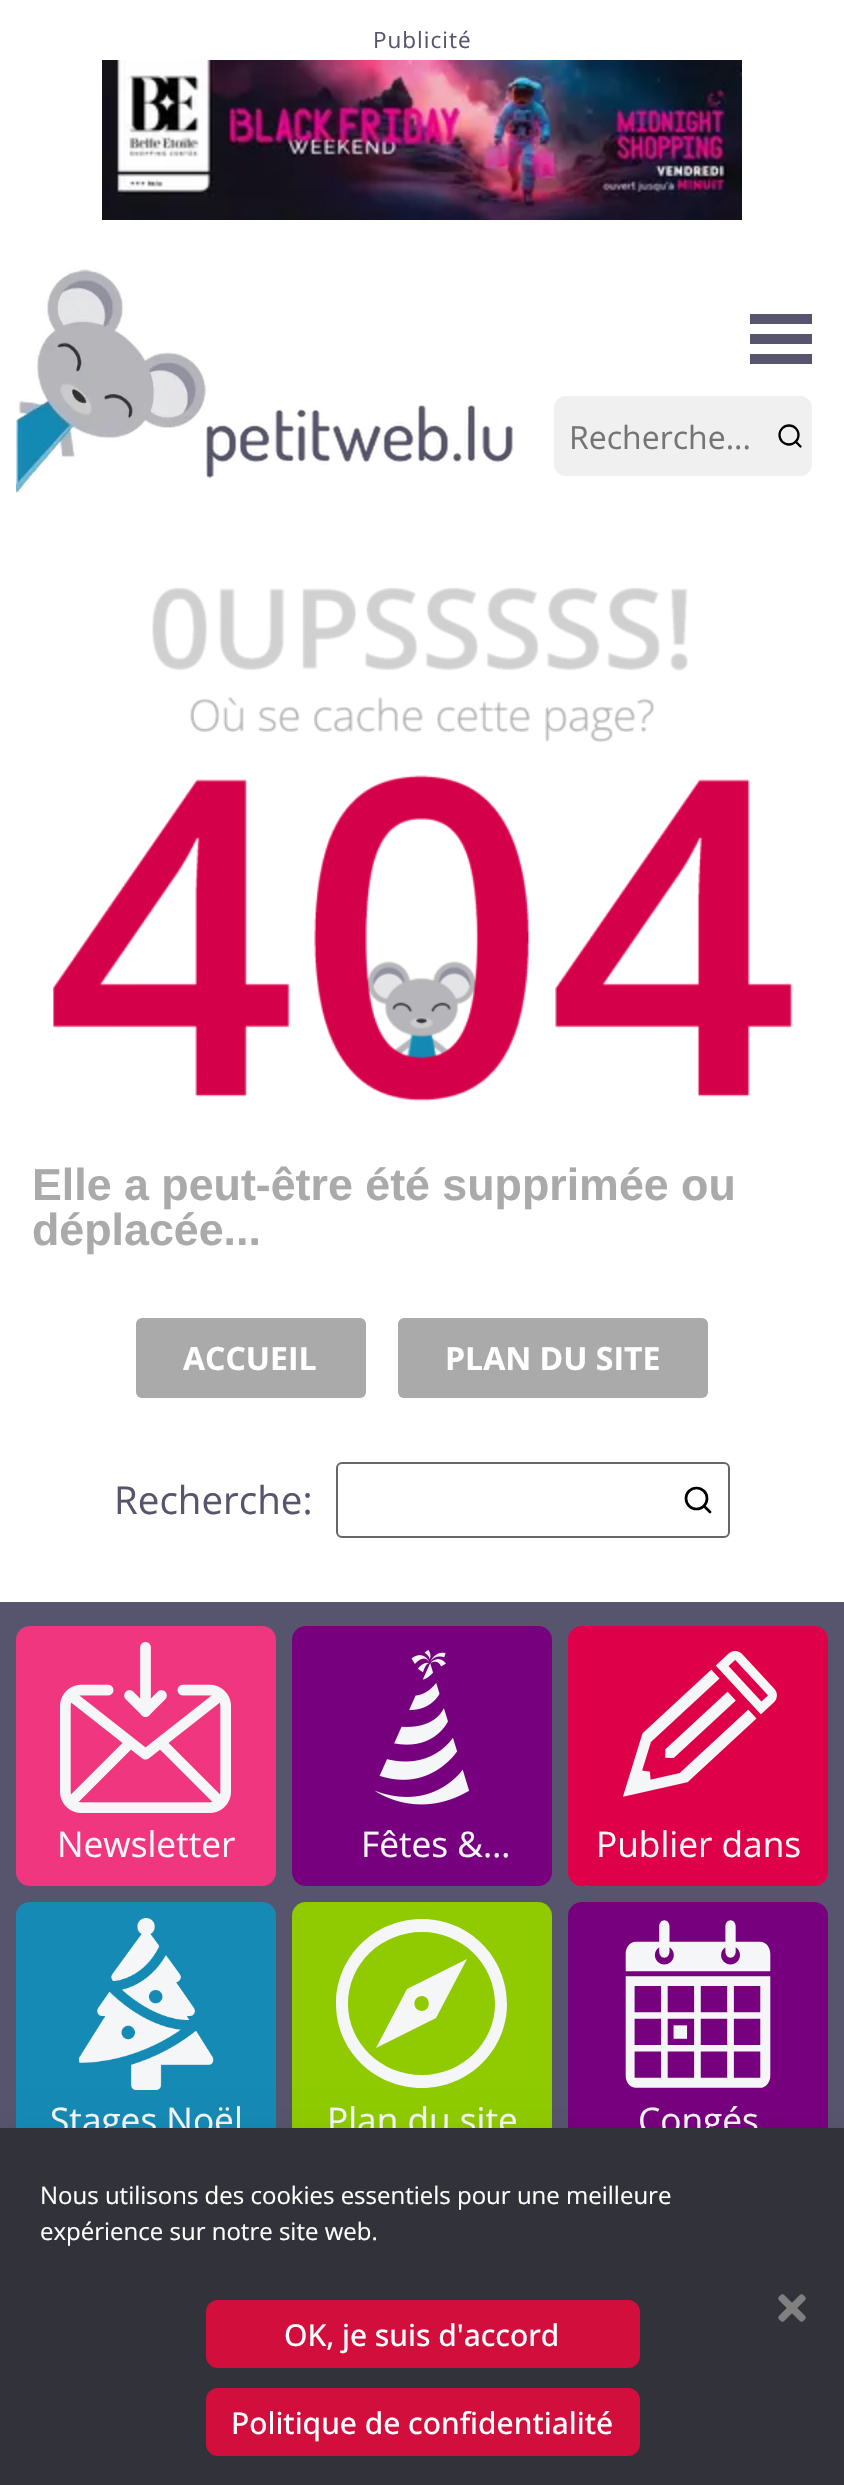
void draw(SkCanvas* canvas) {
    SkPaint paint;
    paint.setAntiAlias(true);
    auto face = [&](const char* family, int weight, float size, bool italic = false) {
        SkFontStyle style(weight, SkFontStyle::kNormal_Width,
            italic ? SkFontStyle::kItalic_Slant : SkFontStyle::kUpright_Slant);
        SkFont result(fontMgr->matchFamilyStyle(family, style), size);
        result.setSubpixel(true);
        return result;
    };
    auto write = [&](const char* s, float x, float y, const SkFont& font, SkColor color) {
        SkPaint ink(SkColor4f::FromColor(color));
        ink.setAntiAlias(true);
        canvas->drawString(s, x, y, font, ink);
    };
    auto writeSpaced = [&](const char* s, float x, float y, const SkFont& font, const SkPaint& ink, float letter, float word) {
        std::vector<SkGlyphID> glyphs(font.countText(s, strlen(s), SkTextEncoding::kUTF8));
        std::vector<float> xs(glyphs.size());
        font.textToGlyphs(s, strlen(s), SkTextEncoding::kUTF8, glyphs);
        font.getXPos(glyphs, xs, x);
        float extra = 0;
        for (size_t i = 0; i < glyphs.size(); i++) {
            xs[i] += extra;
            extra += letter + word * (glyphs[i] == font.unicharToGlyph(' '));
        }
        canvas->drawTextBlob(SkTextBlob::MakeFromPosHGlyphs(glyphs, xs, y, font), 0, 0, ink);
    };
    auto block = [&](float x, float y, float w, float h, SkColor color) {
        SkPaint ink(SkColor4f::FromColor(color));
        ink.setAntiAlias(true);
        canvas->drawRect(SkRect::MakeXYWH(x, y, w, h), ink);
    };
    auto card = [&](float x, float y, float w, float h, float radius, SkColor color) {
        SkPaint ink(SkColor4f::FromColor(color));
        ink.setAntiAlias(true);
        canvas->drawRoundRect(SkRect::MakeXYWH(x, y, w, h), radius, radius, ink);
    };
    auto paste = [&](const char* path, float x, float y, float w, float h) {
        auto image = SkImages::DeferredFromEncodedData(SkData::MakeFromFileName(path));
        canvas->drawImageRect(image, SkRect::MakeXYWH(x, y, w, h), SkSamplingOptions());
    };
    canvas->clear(SK_ColorWHITE);
    auto kFont1 = face("Open Sans", 400, 22.5f);
    paint.setColor(SkColorSetRGB(87, 85, 110));
    writeSpaced("Publicité", 373, 48, kFont1, paint, 1, 0);
    paste("pic1.png", 102, 60, 640, 160);
    paste("pic2.png", 16, 268, 498, 225);
    block(750, 314, 62, 10, SkColorSetRGB(87, 85, 110));
    block(750, 334, 62, 10, SkColorSetRGB(87, 85, 110));
    block(750, 354, 62, 10, SkColorSetRGB(87, 85, 110));
    card(554, 396, 258, 80, 12, SkColorSetRGB(240, 240, 241));
    auto kFont2 = face("Open Sans", 400, 32);
    write("Recherche...", 569, 449, kFont2, SkColorSetRGB(117, 117, 117));
    paint.setStyle(SkPaint::kStroke_Style);
    paint.setStrokeWidth(2.3f);
    paint.setColor(SK_ColorBLACK);
    canvas->drawCircle(789, 435, 9.5f, paint);
    paint.setStrokeCap(SkPaint::kRound_Cap);
    paint.setStrokeJoin(SkPaint::kRound_Join);
    canvas->drawPath(SkPathBuilder().moveTo(800.5f, 446.5f).lineTo(795.5f, 441.5f).detach(), paint);
    paste("pic3.png", 53, 587, 740, 514);
    auto kFont3 = face("Liberation Sans", 700, 44.75f);
    write("Elle a peut-être été supprimée ou", 32, 1200, kFont3, SkColorSetRGB(170, 170, 170));
    write("déplacée...", 32, 1245, kFont3, SkColorSetRGB(170, 170, 170));
    card(136, 1318, 230, 80, 6, SkColorSetRGB(170, 170, 170));
    auto kFont4 = face("Open Sans", 700, 32);
    write("ACCUEIL", 183, 1370, kFont4, SK_ColorWHITE);
    card(398, 1318, 310, 80, 6, SkColorSetRGB(170, 170, 170));
    write("PLAN DU SITE", 445, 1370, kFont4, SK_ColorWHITE);
    auto kFont5 = face("Open Sans", 400, 38.5f);
    write("Recherche:", 114, 1514, kFont5, SkColorSetRGB(87, 85, 110));
    paint.setStrokeWidth(2);
    paint.setStrokeCap(SkPaint::kButt_Cap);
    paint.setStrokeJoin(SkPaint::kMiter_Join);
    paint.setColor(SkColorSetRGB(102, 102, 102));
    canvas->drawRoundRect(SkRect::MakeXYWH(337, 1463, 392, 74), 5, 5, paint);
    paint.setStrokeWidth(2.7f);
    paint.setColor(SK_ColorBLACK);
    canvas->drawCircle(696.5f, 1498.5f, 10.5f, paint);
    paint.setStrokeCap(SkPaint::kRound_Cap);
    paint.setStrokeJoin(SkPaint::kRound_Join);
    canvas->drawPath(SkPathBuilder().moveTo(710, 1512).lineTo(704, 1506).detach(), paint);
    block(0, 1602, 844, 526, SkColorSetRGB(87, 85, 110));
    card(16, 1626, 260, 260, 14, SkColorSetRGB(239, 54, 126));
    paste("pic4.png", 60, 1642, 171, 171);
    auto kFont6 = face("Open Sans", 400, 35.25f);
    write("Newsletter", 57, 1857, kFont6, SkColorSetRGB(245, 246, 247));
    card(292, 1626, 260, 260, 14, SkColorSetRGB(119, 0, 126));
    paste("pic5.png", 374, 1650, 96, 155);
    write("Fêtes &…", 361, 1857, kFont6, SkColorSetRGB(245, 246, 247));
    card(568, 1626, 260, 260, 14, SkColorSetRGB(222, 0, 72));
    paste("pic6.png", 623, 1651, 154, 146);
    write("Publier dans", 596, 1857, kFont6, SkColorSetRGB(245, 246, 247));
    card(16, 1902, 260, 260, 14, SkColorSetRGB(21, 138, 181));
    paste("pic7.png", 78, 1918, 136, 172);
    write("Stages Noël", 50, 2133, kFont6, SkColorSetRGB(245, 246, 247));
    card(292, 1902, 260, 260, 14, SkColorSetRGB(143, 203, 0));
    paint.setStyle(SkPaint::kFill_Style);
    paint.setColor(SkColorSetRGB(245, 246, 247));
    canvas->drawPath(SkPathBuilder().moveTo(422, 2088).cubicTo(374, 2088, 336, 2050, 336, 2004).cubicTo(336, 1957, 374, 1919, 422, 1919).cubicTo(469, 1919, 507, 1957, 507, 2004).cubicTo(507, 2050, 469, 2088, 422, 2088).close().moveTo(422, 1932).cubicTo(381, 1932, 348, 1964, 348, 2004).cubicTo(348, 2043, 381, 2075, 422, 2075).cubicTo(462, 2075, 495, 2043, 495, 2004).cubicTo(495, 1964, 462, 1932, 422, 1932).close().moveTo(407, 1989).lineTo(376, 2048).lineTo(436, 2018).lineTo(467, 1959).close().moveTo(422, 2011).cubicTo(412, 2011, 412, 1996, 422, 1996).cubicTo(431, 1996, 431, 2011, 422, 2011).close().detach(), paint);
    write("Plan du site", 327, 2133, kFont6, SkColorSetRGB(245, 246, 247));
    card(568, 1902, 260, 260, 14, SkColorSetRGB(119, 0, 126));
    paste("pic8.png", 625, 1920, 146, 168);
    write("Congés", 638, 2133, kFont6, SkColorSetRGB(245, 246, 247));
    paint.setColor(SkColorSetARGB(48, 0, 0, 0));
    paint.setMaskFilter(SkMaskFilter::MakeBlur(kNormal_SkBlurStyle, 20));
    canvas->drawRect(SkRect::MakeXYWH(0, 2148, 844, 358), paint);
    paint.setMaskFilter(nullptr);
    block(0, 2128, 844, 357, SkColorSetRGB(50, 50, 58));
    auto kFont7 = face("Open Sans", 400, 24);
    write("Nous utilisons des cookies essentiels pour une meilleure", 40, 2204, kFont7, SK_ColorWHITE);
    write("expérience sur notre site web.", 40, 2240, kFont7, SK_ColorWHITE);
    paste("pic9.png", 778, 2294, 28, 28);
    paint.setColor(SkColorSetRGB(209, 14, 60));
    canvas->drawRoundRect(SkRect::MakeXYWH(207, 2301, 432, 66), 11, 11, paint);
    paint.setStyle(SkPaint::kStroke_Style);
    paint.setStrokeWidth(2);
    paint.setStrokeCap(SkPaint::kButt_Cap);
    paint.setStrokeJoin(SkPaint::kMiter_Join);
    canvas->drawRoundRect(SkRect::MakeXYWH(207, 2301, 432, 66), 11, 11, paint);
    auto kFont8 = face("Open Sans", 500, 30);
    write("OK, je suis d'accord", 284, 2346, kFont8, SK_ColorWHITE);
    paint.setStyle(SkPaint::kFill_Style);
    canvas->drawRoundRect(SkRect::MakeXYWH(207, 2389, 432, 66), 11, 11, paint);
    paint.setStyle(SkPaint::kStroke_Style);
    canvas->drawRoundRect(SkRect::MakeXYWH(207, 2389, 432, 66), 11, 11, paint);
    write("Politique de confidentialité", 231, 2434, kFont8, SK_ColorWHITE);
}
